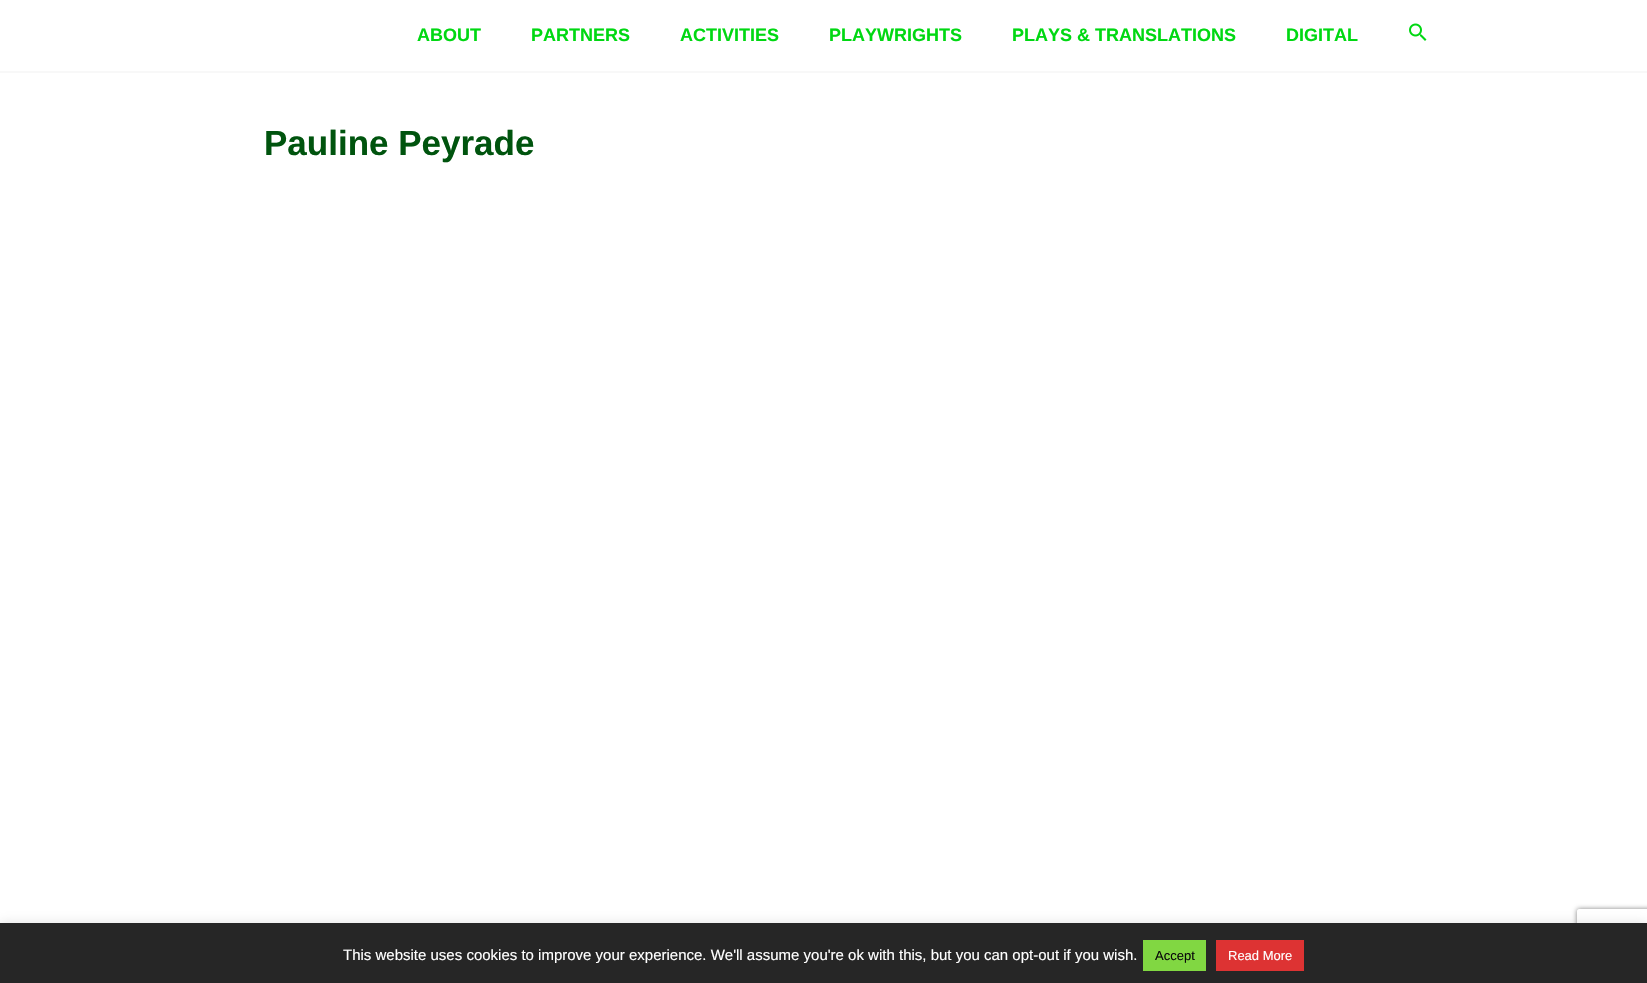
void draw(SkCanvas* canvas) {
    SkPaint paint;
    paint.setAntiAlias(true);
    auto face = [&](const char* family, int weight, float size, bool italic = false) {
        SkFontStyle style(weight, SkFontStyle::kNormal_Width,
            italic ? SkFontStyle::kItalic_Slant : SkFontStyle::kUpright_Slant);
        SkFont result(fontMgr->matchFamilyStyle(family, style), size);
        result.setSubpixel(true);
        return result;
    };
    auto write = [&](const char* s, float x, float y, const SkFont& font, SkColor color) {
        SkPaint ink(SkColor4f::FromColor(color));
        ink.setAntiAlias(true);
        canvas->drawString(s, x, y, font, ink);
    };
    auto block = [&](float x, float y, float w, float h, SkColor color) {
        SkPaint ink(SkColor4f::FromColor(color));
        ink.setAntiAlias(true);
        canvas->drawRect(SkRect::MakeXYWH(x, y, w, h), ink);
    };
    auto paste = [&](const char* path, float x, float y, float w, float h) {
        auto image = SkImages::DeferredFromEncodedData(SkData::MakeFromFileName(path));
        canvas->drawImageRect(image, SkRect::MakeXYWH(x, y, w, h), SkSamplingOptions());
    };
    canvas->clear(SK_ColorWHITE);
    block(0, 71, 1647, 2, SkColorSetRGB(248, 248, 248));
    auto kFont1 = face("Arimo", 700, 18);
    write("ABOUT", 417, 41, kFont1, SkColorSetRGB(0, 216, 18));
    write("PARTNERS", 531, 41, kFont1, SkColorSetRGB(0, 216, 18));
    write("ACTIVITIES", 680, 41, kFont1, SkColorSetRGB(0, 216, 18));
    write("PLAYWRIGHTS", 829, 41, kFont1, SkColorSetRGB(0, 216, 18));
    write("PLAYS & TRANSLATIONS", 1012, 41, kFont1, SkColorSetRGB(0, 216, 18));
    write("DIGITAL", 1286, 41, kFont1, SkColorSetRGB(0, 216, 18));
    paste("pic1.png", 1409, 23, 18, 18);
    auto kFont2 = face("Arimo", 700, 35);
    write("Pauline Peyrade", 264, 155, kFont2, SkColorSetRGB(0, 84, 14));
    paint.setColor(SkColorSetARGB(77, 172, 171, 171));
    paint.setMaskFilter(SkMaskFilter::MakeBlur(kNormal_SkBlurStyle, 5));
    canvas->drawRect(SkRect::MakeXYWH(0, 922, 1647, 60), paint);
    paint.setMaskFilter(nullptr);
    canvas->save();
    canvas->clipPath(SkPathBuilder(SkPathFillType::kEvenOdd).moveTo(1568, 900).lineTo(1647, 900).lineTo(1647, 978).lineTo(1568, 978).close().moveTo(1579, 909).lineTo(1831, 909).cubicTo(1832, 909, 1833, 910, 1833, 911).lineTo(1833, 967).cubicTo(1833, 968, 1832, 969, 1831, 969).lineTo(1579, 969).cubicTo(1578, 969, 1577, 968, 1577, 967).lineTo(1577, 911).cubicTo(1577, 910, 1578, 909, 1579, 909).close().detach(), true);
    paint.setColor(SkColorSetRGB(128, 128, 128));
    paint.setMaskFilter(SkMaskFilter::MakeBlur(kNormal_SkBlurStyle, 2.5f));
    canvas->drawRoundRect(SkRect::MakeXYWH(1577, 909, 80, 60), 2, 2, paint);
    paint.setMaskFilter(nullptr);
    canvas->restore();
    block(0, 923, 1647, 60, SkColorSetRGB(38, 38, 38));
    auto kFont3 = face("Arimo", 400, 15);
    write("This website uses cookies to improve your experience. We'll assume you're ok with this, but you can opt-out if you wish.", 343, 960, kFont3, SK_ColorWHITE);
    block(1143, 940, 63, 31, SkColorSetRGB(129, 215, 66));
    auto kFont4 = face("Arimo", 400, 13);
    write("Accept", 1155, 960, kFont4, SkColorSetRGB(10, 10, 10));
    block(1216, 940, 88, 31, SkColorSetRGB(221, 51, 51));
    write("Read More", 1228, 960, kFont4, SK_ColorWHITE);
}
